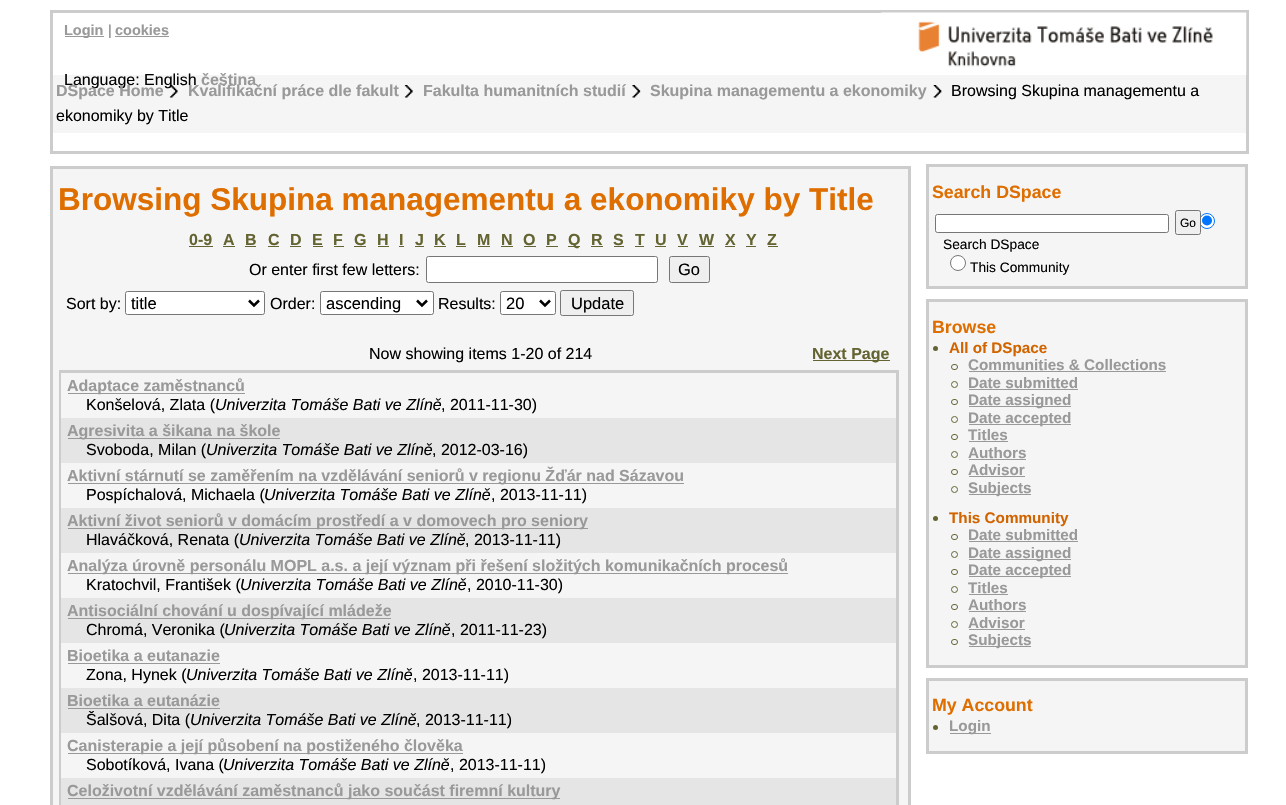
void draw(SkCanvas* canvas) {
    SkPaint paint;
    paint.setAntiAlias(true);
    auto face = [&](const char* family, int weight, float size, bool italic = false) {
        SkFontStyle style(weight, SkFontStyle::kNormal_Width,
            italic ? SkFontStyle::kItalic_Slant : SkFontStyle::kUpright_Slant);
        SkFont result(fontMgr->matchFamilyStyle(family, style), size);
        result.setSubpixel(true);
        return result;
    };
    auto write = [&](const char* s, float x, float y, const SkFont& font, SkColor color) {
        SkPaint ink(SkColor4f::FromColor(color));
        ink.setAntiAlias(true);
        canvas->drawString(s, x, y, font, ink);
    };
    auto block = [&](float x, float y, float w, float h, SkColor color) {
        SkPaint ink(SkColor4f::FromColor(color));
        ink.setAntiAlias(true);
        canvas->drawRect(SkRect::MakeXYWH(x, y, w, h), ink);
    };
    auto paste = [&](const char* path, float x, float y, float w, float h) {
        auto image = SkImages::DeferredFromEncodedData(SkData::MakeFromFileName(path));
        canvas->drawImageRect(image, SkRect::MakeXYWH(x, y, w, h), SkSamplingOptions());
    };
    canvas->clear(SK_ColorWHITE);
    paint.setStyle(SkPaint::kStroke_Style);
    paint.setStrokeWidth(3);
    paint.setColor(SkColorSetRGB(204, 204, 204));
    canvas->drawRect(SkRect::MakeXYWH(51.5f, 11.5f, 1196, 141), paint);
    block(65, 36, 39, 1, SkColorSetRGB(153, 153, 153));
    auto kFont1 = face("Liberation Sans", 700, 14.5f);
    write("Login", 64, 35, kFont1, SkColorSetRGB(153, 153, 153));
    auto kFont2 = face("Liberation Sans", 400, 14.5f);
    write("|", 108, 35, kFont2, SkColorSetRGB(128, 128, 128));
    write("cookies", 115, 35, kFont1, SkColorSetRGB(153, 153, 153));
    block(115, 36, 54, 1, SkColorSetRGB(153, 153, 153));
    paste("pic1.png", 881, 12, 366, 63);
    block(53, 75, 1193, 58, SkColorSetRGB(245, 245, 245));
    paste("pic2.png", 169, 85, 9, 13);
    auto kFont3 = face("Liberation Sans", 400, 16);
    write("Language: English", 64, 85, kFont3, SK_ColorBLACK);
    auto kFont4 = face("Liberation Sans", 700, 16);
    write("čeština", 201, 85, kFont4, SkColorSetRGB(153, 153, 153));
    write("DSpace Home", 56, 96, kFont4, SkColorSetRGB(153, 153, 153));
    write("Kvalifikační práce dle fakult", 188, 96, kFont4, SkColorSetRGB(153, 153, 153));
    paste("pic3.png", 404, 85, 9, 13);
    write("Fakulta humanitních studií", 423, 96, kFont4, SkColorSetRGB(153, 153, 153));
    paste("pic4.png", 632, 85, 9, 13);
    write("Skupina managementu a ekonomiky", 650, 96, kFont4, SkColorSetRGB(153, 153, 153));
    paste("pic5.png", 933, 85, 9, 13);
    write("Browsing Skupina managementu a", 951, 96, kFont3, SK_ColorBLACK);
    write("ekonomiky by Title", 56, 121, kFont3, SK_ColorBLACK);
    paint.setStyle(SkPaint::kFill_Style);
    paint.setColor(SkColorSetRGB(245, 245, 245));
    canvas->drawRect(SkRect::MakeXYWH(51.5f, 167.5f, 858, 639), paint);
    paint.setStyle(SkPaint::kStroke_Style);
    paint.setColor(SkColorSetRGB(204, 204, 204));
    canvas->drawRect(SkRect::MakeXYWH(51.5f, 167.5f, 858, 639), paint);
    auto kFont5 = face("Liberation Sans", 700, 31.5f);
    write("Browsing Skupina managementu a ekonomiky by Title", 58, 210, kFont5, SkColorSetRGB(223, 110, 0));
    write("0-9", 189, 245, kFont4, SkColorSetRGB(100, 100, 50));
    block(189, 246, 24, 1, SkColorSetRGB(100, 100, 50));
    write("A", 223, 245, kFont4, SkColorSetRGB(100, 100, 50));
    block(223, 246, 12, 1, SkColorSetRGB(100, 100, 50));
    write("B", 245, 245, kFont4, SkColorSetRGB(100, 100, 50));
    block(245, 246, 11, 1, SkColorSetRGB(100, 100, 50));
    write("C", 268, 245, kFont4, SkColorSetRGB(100, 100, 50));
    block(268, 246, 11, 1, SkColorSetRGB(100, 100, 50));
    write("D", 290, 245, kFont4, SkColorSetRGB(100, 100, 50));
    block(290, 246, 11, 1, SkColorSetRGB(100, 100, 50));
    write("E", 312, 245, kFont4, SkColorSetRGB(100, 100, 50));
    block(313, 246, 10, 1, SkColorSetRGB(100, 100, 50));
    write("F", 333, 245, kFont4, SkColorSetRGB(100, 100, 50));
    block(334, 246, 10, 1, SkColorSetRGB(100, 100, 50));
    write("G", 354, 245, kFont4, SkColorSetRGB(100, 100, 50));
    block(354, 246, 12, 1, SkColorSetRGB(100, 100, 50));
    write("H", 377, 245, kFont4, SkColorSetRGB(100, 100, 50));
    block(378, 246, 11, 1, SkColorSetRGB(100, 100, 50));
    write("I", 399, 245, kFont4, SkColorSetRGB(100, 100, 50));
    block(399, 246, 5, 1, SkColorSetRGB(100, 100, 50));
    write("J", 415, 245, kFont4, SkColorSetRGB(100, 100, 50));
    block(415, 246, 9, 1, SkColorSetRGB(100, 100, 50));
    write("K", 434, 245, kFont4, SkColorSetRGB(100, 100, 50));
    block(434, 246, 12, 1, SkColorSetRGB(100, 100, 50));
    write("L", 456, 245, kFont4, SkColorSetRGB(100, 100, 50));
    block(456, 246, 10, 1, SkColorSetRGB(100, 100, 50));
    write("M", 477, 245, kFont4, SkColorSetRGB(100, 100, 50));
    block(478, 246, 12, 1, SkColorSetRGB(100, 100, 50));
    write("N", 501, 245, kFont4, SkColorSetRGB(100, 100, 50));
    block(501, 246, 12, 1, SkColorSetRGB(100, 100, 50));
    write("O", 523, 245, kFont4, SkColorSetRGB(100, 100, 50));
    block(524, 246, 12, 1, SkColorSetRGB(100, 100, 50));
    write("P", 546, 245, kFont4, SkColorSetRGB(100, 100, 50));
    block(546, 246, 12, 1, SkColorSetRGB(100, 100, 50));
    block(568, 246, 12, 1, SkColorSetRGB(100, 100, 50));
    write("Q", 568, 245, kFont4, SkColorSetRGB(100, 100, 50));
    write("R", 591, 245, kFont4, SkColorSetRGB(100, 100, 50));
    block(591, 246, 12, 1, SkColorSetRGB(100, 100, 50));
    write("S", 613, 245, kFont4, SkColorSetRGB(100, 100, 50));
    block(614, 246, 10, 1, SkColorSetRGB(100, 100, 50));
    write("T", 635, 245, kFont4, SkColorSetRGB(100, 100, 50));
    block(635, 246, 9, 1, SkColorSetRGB(100, 100, 50));
    write("U", 655, 245, kFont4, SkColorSetRGB(100, 100, 50));
    block(655, 246, 11, 1, SkColorSetRGB(100, 100, 50));
    write("V", 677, 245, kFont4, SkColorSetRGB(100, 100, 50));
    block(678, 246, 10, 1, SkColorSetRGB(100, 100, 50));
    write("W", 699, 245, kFont4, SkColorSetRGB(100, 100, 50));
    block(699, 246, 15, 1, SkColorSetRGB(100, 100, 50));
    write("X", 725, 245, kFont4, SkColorSetRGB(100, 100, 50));
    block(725, 246, 10, 1, SkColorSetRGB(100, 100, 50));
    write("Y", 746, 245, kFont4, SkColorSetRGB(100, 100, 50));
    block(746, 246, 10, 1, SkColorSetRGB(100, 100, 50));
    write("Z", 767, 245, kFont4, SkColorSetRGB(100, 100, 50));
    block(768, 246, 10, 1, SkColorSetRGB(100, 100, 50));
    write("Or enter first few letters:", 249, 275, kFont3, SK_ColorBLACK);
    paint.setStyle(SkPaint::kFill_Style);
    paint.setColor(SK_ColorWHITE);
    canvas->drawRoundRect(SkRect::MakeXYWH(426.5f, 256.5f, 231, 26), 2, 2, paint);
    paint.setStyle(SkPaint::kStroke_Style);
    paint.setStrokeWidth(1);
    paint.setColor(SkColorSetRGB(118, 118, 118));
    canvas->drawRoundRect(SkRect::MakeXYWH(426.5f, 256.5f, 231, 26), 2, 2, paint);
    paint.setStyle(SkPaint::kFill_Style);
    paint.setColor(SkColorSetRGB(239, 239, 239));
    canvas->drawRoundRect(SkRect::MakeXYWH(669.5f, 256.5f, 40, 26), 2, 2, paint);
    paint.setStyle(SkPaint::kStroke_Style);
    paint.setColor(SkColorSetRGB(118, 118, 118));
    canvas->drawRoundRect(SkRect::MakeXYWH(669.5f, 256.5f, 40, 26), 2, 2, paint);
    auto kFont6 = face("Liberation Sans", 400, 16.5f);
    write("Go", 678, 275, kFont6, SK_ColorBLACK);
    write("Sort by:", 66, 309, kFont3, SK_ColorBLACK);
    paint.setStyle(SkPaint::kFill_Style);
    paint.setColor(SK_ColorWHITE);
    canvas->drawRoundRect(SkRect::MakeXYWH(125.5f, 291.5f, 139, 23), 2, 2, paint);
    paint.setStyle(SkPaint::kStroke_Style);
    paint.setColor(SkColorSetRGB(118, 118, 118));
    canvas->drawRoundRect(SkRect::MakeXYWH(125.5f, 291.5f, 139, 23), 2, 2, paint);
    paint.setStrokeWidth(2.5f);
    paint.setColor(SK_ColorBLACK);
    canvas->drawPath(SkPathBuilder().moveTo(249, 300.5f).lineTo(254, 305.5f).lineTo(259, 300.5f).detach(), paint);
    write("title", 131, 309, kFont6, SK_ColorBLACK);
    write("Order:", 270, 309, kFont3, SK_ColorBLACK);
    paint.setStyle(SkPaint::kFill_Style);
    paint.setColor(SK_ColorWHITE);
    canvas->drawRoundRect(SkRect::MakeXYWH(320.5f, 291.5f, 113, 23), 2, 2, paint);
    paint.setStyle(SkPaint::kStroke_Style);
    paint.setStrokeWidth(1);
    paint.setColor(SkColorSetRGB(118, 118, 118));
    canvas->drawRoundRect(SkRect::MakeXYWH(320.5f, 291.5f, 113, 23), 2, 2, paint);
    paint.setStrokeWidth(2.5f);
    paint.setColor(SK_ColorBLACK);
    canvas->drawPath(SkPathBuilder().moveTo(417, 300.5f).lineTo(422, 305.5f).lineTo(427, 300.5f).detach(), paint);
    write("ascending", 326, 309, kFont6, SK_ColorBLACK);
    write("Results:", 438, 309, kFont3, SK_ColorBLACK);
    paint.setStyle(SkPaint::kFill_Style);
    paint.setColor(SK_ColorWHITE);
    canvas->drawRoundRect(SkRect::MakeXYWH(500.5f, 291.5f, 55, 23), 2, 2, paint);
    paint.setStyle(SkPaint::kStroke_Style);
    paint.setStrokeWidth(1);
    paint.setColor(SkColorSetRGB(118, 118, 118));
    canvas->drawRoundRect(SkRect::MakeXYWH(500.5f, 291.5f, 55, 23), 2, 2, paint);
    paint.setStrokeWidth(2.5f);
    paint.setColor(SK_ColorBLACK);
    canvas->drawPath(SkPathBuilder().moveTo(540, 300.5f).lineTo(545, 305.5f).lineTo(550, 300.5f).detach(), paint);
    write("20", 506, 309, kFont6, SK_ColorBLACK);
    paint.setStyle(SkPaint::kFill_Style);
    paint.setColor(SkColorSetRGB(239, 239, 239));
    canvas->drawRoundRect(SkRect::MakeXYWH(560.5f, 290.5f, 73, 25), 2, 2, paint);
    paint.setStyle(SkPaint::kStroke_Style);
    paint.setStrokeWidth(1);
    paint.setColor(SkColorSetRGB(118, 118, 118));
    canvas->drawRoundRect(SkRect::MakeXYWH(560.5f, 290.5f, 73, 25), 2, 2, paint);
    write("Update", 571, 309, kFont6, SK_ColorBLACK);
    write("Now showing items 1-20 of 214", 369, 359, kFont3, SK_ColorBLACK);
    block(813, 360, 77, 1, SkColorSetRGB(100, 100, 50));
    write("Next Page", 812, 359, kFont4, SkColorSetRGB(100, 100, 50));
    paint.setStrokeWidth(3);
    paint.setColor(SkColorSetRGB(204, 204, 204));
    canvas->drawRect(SkRect::MakeXYWH(60.5f, 371.5f, 837, 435), paint);
    block(61, 373, 1, 45, SkColorSetRGB(245, 245, 245));
    block(68, 393, 177, 1, SkColorSetRGB(153, 153, 153));
    write("Adaptace zaměstnanců", 67, 391, kFont4, SkColorSetRGB(153, 153, 153));
    write("Konšelová, Zlata (", 86, 410, kFont3, SK_ColorBLACK);
    auto kFont7 = face("Liberation Sans", 400, 16, true);
    write("Univerzita Tomáše Bati ve Zlíně", 215, 410, kFont7, SK_ColorBLACK);
    write(", 2011-11-30)", 441, 410, kFont3, SK_ColorBLACK);
    block(61, 418, 835, 45, SkColorSetRGB(229, 229, 229));
    block(68, 438, 212, 1, SkColorSetRGB(153, 153, 153));
    write("Agresivita a šikana na škole", 67, 436, kFont4, SkColorSetRGB(153, 153, 153));
    write("Svoboda, Milan (", 86, 455, kFont3, SK_ColorBLACK);
    write("Univerzita Tomáše Bati ve Zlíně", 206, 455, kFont7, SK_ColorBLACK);
    write(", 2012-03-16)", 432, 455, kFont3, SK_ColorBLACK);
    block(61, 463, 1, 45, SkColorSetRGB(245, 245, 245));
    block(68, 483, 616, 1, SkColorSetRGB(153, 153, 153));
    write("Aktivní stárnutí se zaměřením na vzdělávání seniorů v regionu Žďár nad Sázavou", 67, 481, kFont4, SkColorSetRGB(153, 153, 153));
    write("Pospíchalová, Michaela (", 86, 500, kFont3, SK_ColorBLACK);
    write("Univerzita Tomáše Bati ve Zlíně", 264, 500, kFont7, SK_ColorBLACK);
    write(", 2013-11-11)", 491, 500, kFont3, SK_ColorBLACK);
    block(61, 508, 835, 45, SkColorSetRGB(229, 229, 229));
    block(68, 528, 520, 1, SkColorSetRGB(153, 153, 153));
    write("Aktivní život seniorů v domácím prostředí a v domovech pro seniory", 67, 526, kFont4, SkColorSetRGB(153, 153, 153));
    write("Hlaváčková, Renata (", 86, 545, kFont3, SK_ColorBLACK);
    write("Univerzita Tomáše Bati ve Zlíně", 239, 545, kFont7, SK_ColorBLACK);
    write(", 2013-11-11)", 465, 545, kFont3, SK_ColorBLACK);
    block(61, 553, 1, 45, SkColorSetRGB(245, 245, 245));
    block(68, 573, 720, 1, SkColorSetRGB(153, 153, 153));
    write("Analýza úrovně personálu MOPL a.s. a její význam při řešení složitých komunikačních procesů", 67, 571, kFont4, SkColorSetRGB(153, 153, 153));
    write("Kratochvil, František (", 86, 590, kFont3, SK_ColorBLACK);
    write("Univerzita Tomáše Bati ve Zlíně", 240, 590, kFont7, SK_ColorBLACK);
    write(", 2010-11-30)", 467, 590, kFont3, SK_ColorBLACK);
    block(61, 598, 835, 45, SkColorSetRGB(229, 229, 229));
    block(68, 618, 323, 1, SkColorSetRGB(153, 153, 153));
    write("Antisociální chování u dospívající mládeže", 67, 616, kFont4, SkColorSetRGB(153, 153, 153));
    write("Chromá, Veronika (", 86, 635, kFont3, SK_ColorBLACK);
    write("Univerzita Tomáše Bati ve Zlíně", 224, 635, kFont7, SK_ColorBLACK);
    write(", 2011-11-23)", 451, 635, kFont3, SK_ColorBLACK);
    block(61, 643, 1, 45, SkColorSetRGB(245, 245, 245));
    write("Bioetika a eutanazie", 67, 661, kFont4, SkColorSetRGB(153, 153, 153));
    block(68, 663, 152, 1, SkColorSetRGB(153, 153, 153));
    write("Zona, Hynek (", 86, 680, kFont3, SK_ColorBLACK);
    write("Univerzita Tomáše Bati ve Zlíně", 186, 680, kFont7, SK_ColorBLACK);
    write(", 2013-11-11)", 413, 680, kFont3, SK_ColorBLACK);
    block(61, 688, 835, 45, SkColorSetRGB(229, 229, 229));
    write("Bioetika a eutanázie", 67, 706, kFont4, SkColorSetRGB(153, 153, 153));
    block(68, 708, 152, 1, SkColorSetRGB(153, 153, 153));
    write("Šalšová, Dita (", 86, 725, kFont3, SK_ColorBLACK);
    write("Univerzita Tomáše Bati ve Zlíně", 190, 725, kFont7, SK_ColorBLACK);
    write(", 2013-11-11)", 416, 725, kFont3, SK_ColorBLACK);
    block(61, 733, 1, 45, SkColorSetRGB(245, 245, 245));
    block(68, 753, 395, 1, SkColorSetRGB(153, 153, 153));
    write("Canisterapie a její působení na postiženého člověka", 67, 751, kFont4, SkColorSetRGB(153, 153, 153));
    write("Sobotíková, Ivana (", 86, 770, kFont3, SK_ColorBLACK);
    write("Univerzita Tomáše Bati ve Zlíně", 223, 770, kFont7, SK_ColorBLACK);
    write(", 2013-11-11)", 450, 770, kFont3, SK_ColorBLACK);
    block(61, 778, 835, 27, SkColorSetRGB(229, 229, 229));
    block(68, 798, 492, 1, SkColorSetRGB(153, 153, 153));
    write("Celoživotní vzdělávání zaměstnanců jako součást firemní kultury", 67, 796, kFont4, SkColorSetRGB(153, 153, 153));
    paint.setStyle(SkPaint::kFill_Style);
    paint.setColor(SkColorSetRGB(245, 245, 245));
    canvas->drawRect(SkRect::MakeXYWH(927.5f, 165.5f, 319, 122), paint);
    paint.setStyle(SkPaint::kStroke_Style);
    paint.setColor(SkColorSetRGB(204, 204, 204));
    canvas->drawRect(SkRect::MakeXYWH(927.5f, 165.5f, 319, 122), paint);
    auto kFont8 = face("Liberation Sans", 700, 17.75f);
    write("Search DSpace", 932, 198, kFont8, SkColorSetRGB(223, 110, 0));
    paint.setStyle(SkPaint::kFill_Style);
    paint.setColor(SK_ColorWHITE);
    canvas->drawRoundRect(SkRect::MakeXYWH(935.5f, 214.5f, 233, 18), 2, 2, paint);
    paint.setStyle(SkPaint::kStroke_Style);
    paint.setStrokeWidth(1);
    paint.setColor(SkColorSetRGB(118, 118, 118));
    canvas->drawRoundRect(SkRect::MakeXYWH(935.5f, 214.5f, 233, 18), 2, 2, paint);
    paint.setStyle(SkPaint::kFill_Style);
    paint.setColor(SK_ColorWHITE);
    canvas->drawCircle(1207, 221, 7.5f, paint);
    paint.setStyle(SkPaint::kStroke_Style);
    paint.setColor(SkColorSetRGB(0, 117, 255));
    canvas->drawCircle(1207, 221, 7.5f, paint);
    paint.setStyle(SkPaint::kFill_Style);
    paint.setColor(SkColorSetRGB(239, 239, 239));
    canvas->drawRoundRect(SkRect::MakeXYWH(1175.5f, 210.5f, 25, 24), 2, 2, paint);
    paint.setStyle(SkPaint::kStroke_Style);
    paint.setColor(SkColorSetRGB(118, 118, 118));
    canvas->drawRoundRect(SkRect::MakeXYWH(1175.5f, 210.5f, 25, 24), 2, 2, paint);
    auto kFont9 = face("Liberation Sans", 400, 12);
    write("Go", 1180, 227, kFont9, SK_ColorBLACK);
    paint.setStyle(SkPaint::kFill_Style);
    paint.setColor(SkColorSetRGB(0, 117, 255));
    canvas->drawCircle(1207, 220.5f, 5, paint);
    auto kFont10 = face("Liberation Sans", 400, 13.75f);
    write("Search DSpace", 943, 249, kFont10, SK_ColorBLACK);
    paint.setColor(SK_ColorWHITE);
    canvas->drawCircle(958, 263, 7.5f, paint);
    paint.setStyle(SkPaint::kStroke_Style);
    paint.setColor(SkColorSetRGB(118, 118, 118));
    canvas->drawCircle(958, 263, 7.5f, paint);
    write("This Community", 970, 272, kFont10, SK_ColorBLACK);
    paint.setStyle(SkPaint::kFill_Style);
    paint.setColor(SkColorSetRGB(245, 245, 245));
    canvas->drawRect(SkRect::MakeXYWH(927.5f, 300.5f, 319, 366), paint);
    paint.setStyle(SkPaint::kStroke_Style);
    paint.setStrokeWidth(3);
    paint.setColor(SkColorSetRGB(204, 204, 204));
    canvas->drawRect(SkRect::MakeXYWH(927.5f, 300.5f, 319, 366), paint);
    write("Browse", 932, 333, kFont8, SkColorSetRGB(223, 110, 0));
    paint.setStyle(SkPaint::kFill_Style);
    paint.setColor(SkColorSetRGB(100, 100, 50));
    canvas->drawCircle(935.5f, 348.5f, 2.5f, paint);
    auto kFont11 = face("Liberation Sans", 700, 15.25f);
    write("All of DSpace", 949, 353, kFont11, SkColorSetRGB(210, 100, 0));
    paint.setStyle(SkPaint::kStroke_Style);
    paint.setStrokeWidth(1);
    canvas->drawRoundRect(SkRect::MakeXYWH(951.5f, 364.5f, 6, 5), 2.5f, 2.5f, paint);
    write("Communities & Collections", 968, 370, kFont11, SkColorSetRGB(153, 153, 153));
    block(969, 371, 197, 1, SkColorSetRGB(153, 153, 153));
    canvas->drawCircle(954.5f, 384.5f, 3, paint);
    write("Date submitted", 968, 388, kFont11, SkColorSetRGB(153, 153, 153));
    block(969, 389, 109, 1, SkColorSetRGB(153, 153, 153));
    canvas->drawRoundRect(SkRect::MakeXYWH(951.5f, 399.5f, 6, 5), 2.5f, 2.5f, paint);
    block(969, 406, 102, 1, SkColorSetRGB(153, 153, 153));
    write("Date assigned", 968, 405, kFont11, SkColorSetRGB(153, 153, 153));
    canvas->drawCircle(954.5f, 419.5f, 3, paint);
    block(969, 424, 102, 1, SkColorSetRGB(153, 153, 153));
    write("Date accepted", 968, 423, kFont11, SkColorSetRGB(153, 153, 153));
    canvas->drawRoundRect(SkRect::MakeXYWH(951.5f, 434.5f, 6, 5), 2.5f, 2.5f, paint);
    write("Titles", 968, 440, kFont11, SkColorSetRGB(153, 153, 153));
    block(969, 441, 39, 1, SkColorSetRGB(153, 153, 153));
    canvas->drawCircle(954.5f, 454.5f, 3, paint);
    write("Authors", 968, 458, kFont11, SkColorSetRGB(153, 153, 153));
    block(969, 459, 57, 1, SkColorSetRGB(153, 153, 153));
    canvas->drawRoundRect(SkRect::MakeXYWH(951.5f, 469.5f, 6, 5), 2.5f, 2.5f, paint);
    write("Advisor", 968, 475, kFont11, SkColorSetRGB(153, 153, 153));
    block(969, 476, 56, 1, SkColorSetRGB(153, 153, 153));
    canvas->drawCircle(954.5f, 489.5f, 3, paint);
    block(969, 494, 62, 1, SkColorSetRGB(153, 153, 153));
    write("Subjects", 968, 493, kFont11, SkColorSetRGB(153, 153, 153));
    paint.setStyle(SkPaint::kFill_Style);
    canvas->drawCircle(935.5f, 518.5f, 2.5f, paint);
    write("This Community", 949, 523, kFont11, SkColorSetRGB(210, 100, 0));
    paint.setStyle(SkPaint::kStroke_Style);
    canvas->drawRoundRect(SkRect::MakeXYWH(951.5f, 534.5f, 6, 5), 2.5f, 2.5f, paint);
    write("Date submitted", 968, 540, kFont11, SkColorSetRGB(153, 153, 153));
    block(969, 541, 109, 1, SkColorSetRGB(153, 153, 153));
    canvas->drawCircle(954.5f, 554.5f, 3, paint);
    block(969, 559, 102, 1, SkColorSetRGB(153, 153, 153));
    write("Date assigned", 968, 558, kFont11, SkColorSetRGB(153, 153, 153));
    canvas->drawRoundRect(SkRect::MakeXYWH(951.5f, 569.5f, 6, 5), 2.5f, 2.5f, paint);
    block(969, 576, 102, 1, SkColorSetRGB(153, 153, 153));
    write("Date accepted", 968, 575, kFont11, SkColorSetRGB(153, 153, 153));
    canvas->drawCircle(954.5f, 589.5f, 3, paint);
    write("Titles", 968, 593, kFont11, SkColorSetRGB(153, 153, 153));
    block(969, 594, 39, 1, SkColorSetRGB(153, 153, 153));
    canvas->drawRoundRect(SkRect::MakeXYWH(951.5f, 604.5f, 6, 5), 2.5f, 2.5f, paint);
    write("Authors", 968, 610, kFont11, SkColorSetRGB(153, 153, 153));
    block(969, 611, 57, 1, SkColorSetRGB(153, 153, 153));
    canvas->drawCircle(954.5f, 624.5f, 3, paint);
    write("Advisor", 968, 628, kFont11, SkColorSetRGB(153, 153, 153));
    block(969, 629, 56, 1, SkColorSetRGB(153, 153, 153));
    canvas->drawRoundRect(SkRect::MakeXYWH(951.5f, 639.5f, 6, 5), 2.5f, 2.5f, paint);
    block(969, 646, 62, 1, SkColorSetRGB(153, 153, 153));
    write("Subjects", 968, 645, kFont11, SkColorSetRGB(153, 153, 153));
    paint.setStyle(SkPaint::kFill_Style);
    paint.setColor(SkColorSetRGB(245, 245, 245));
    canvas->drawRect(SkRect::MakeXYWH(927.5f, 679.5f, 319, 73), paint);
    paint.setStyle(SkPaint::kStroke_Style);
    paint.setStrokeWidth(3);
    paint.setColor(SkColorSetRGB(204, 204, 204));
    canvas->drawRect(SkRect::MakeXYWH(927.5f, 679.5f, 319, 73), paint);
    write("My Account", 932, 711, kFont8, SkColorSetRGB(223, 110, 0));
    paint.setStyle(SkPaint::kFill_Style);
    paint.setColor(SkColorSetRGB(100, 100, 50));
    canvas->drawCircle(935.5f, 727.5f, 2.5f, paint);
    block(950, 733, 41, 1, SkColorSetRGB(153, 153, 153));
    write("Login", 949, 731, kFont11, SkColorSetRGB(153, 153, 153));
}
